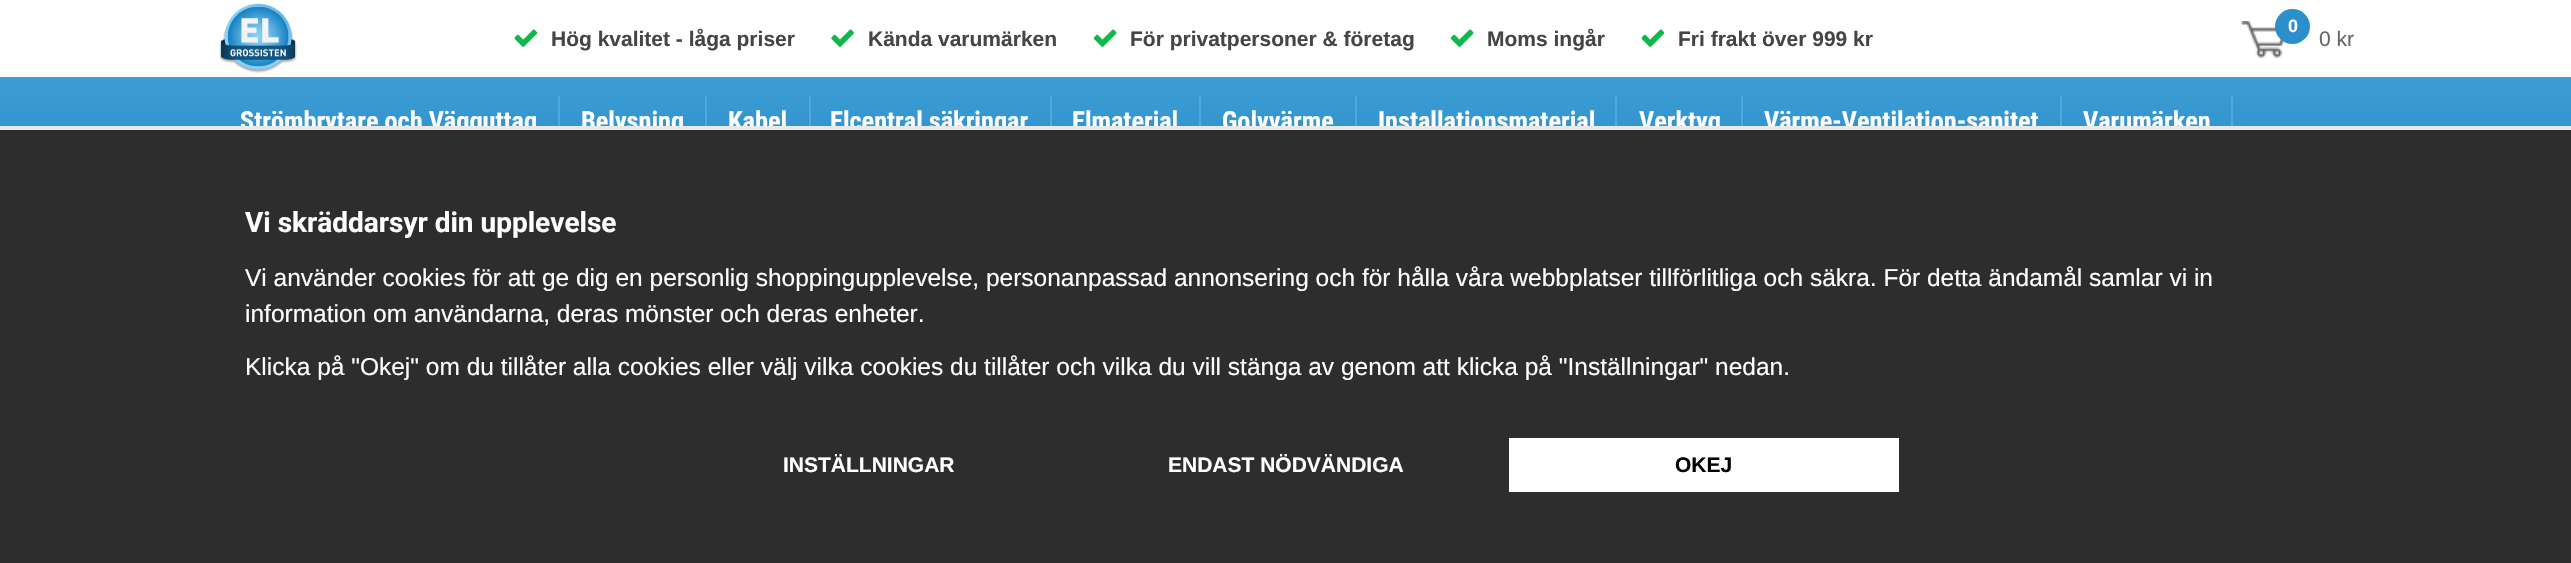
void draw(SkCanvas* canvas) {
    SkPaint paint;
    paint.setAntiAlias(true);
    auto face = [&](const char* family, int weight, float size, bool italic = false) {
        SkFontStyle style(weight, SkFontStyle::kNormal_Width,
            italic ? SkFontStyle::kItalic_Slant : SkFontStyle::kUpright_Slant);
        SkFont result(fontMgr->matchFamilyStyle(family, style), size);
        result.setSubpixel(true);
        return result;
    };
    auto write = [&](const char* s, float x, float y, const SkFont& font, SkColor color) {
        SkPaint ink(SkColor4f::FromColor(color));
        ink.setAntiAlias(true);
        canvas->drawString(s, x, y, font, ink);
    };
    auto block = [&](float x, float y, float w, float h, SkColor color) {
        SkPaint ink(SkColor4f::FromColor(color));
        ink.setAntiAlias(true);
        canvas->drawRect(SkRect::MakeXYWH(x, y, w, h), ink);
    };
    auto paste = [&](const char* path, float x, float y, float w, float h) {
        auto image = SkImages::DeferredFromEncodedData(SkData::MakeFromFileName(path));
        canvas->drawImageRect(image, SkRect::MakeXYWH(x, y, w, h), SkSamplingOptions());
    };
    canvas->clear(SK_ColorWHITE);
    paste("pic1.png", 219, 3, 78, 70);
    paste("pic2.png", 514, 29, 24, 18);
    auto kFont1 = face("Arimo", 700, 21);
    write("Hög kvalitet - låga priser", 551, 46, kFont1, SkColorSetRGB(69, 69, 69));
    paste("pic3.png", 831, 29, 23, 18);
    write("Kända varumärken", 868, 46, kFont1, SkColorSetRGB(69, 69, 69));
    paste("pic4.png", 1093, 29, 24, 18);
    write("För privatpersoner & företag", 1130, 46, kFont1, SkColorSetRGB(69, 69, 69));
    paste("pic4.png", 1450, 29, 24, 18);
    write("Moms ingår", 1487, 46, kFont1, SkColorSetRGB(69, 69, 69));
    paste("pic2.png", 1641, 29, 24, 18);
    write("Fri frakt över 999 kr", 1678, 46, kFont1, SkColorSetRGB(69, 69, 69));
    paste("pic5.png", 2240, 21, 45, 38);
    paint.setColor(SkColorSetRGB(43, 143, 203));
    canvas->drawCircle(2292.5f, 26.5f, 17.5f, paint);
    auto kFont2 = face("Arimo", 700, 18);
    write("0", 2288, 32, kFont2, SK_ColorWHITE);
    auto kFont3 = face("Arimo", 400, 21);
    write("0 kr", 2319, 46, kFont3, SkColorSetRGB(102, 102, 102));
    {
        const SkColor colors[] = {SkColorSetRGB(62, 157, 213), SkColorSetRGB(28, 128, 188)};
        const float stops[] = {0, 1};
        const SkPoint ends[] = {{1286, 75}, {1286, 257}};
        paint.setShader(SkGradientShader::MakeLinear(ends, colors, stops, 2, SkTileMode::kClamp));
        paint.setAlpha(255);
    }
    canvas->drawRect(SkRect::MakeXYWH(0, 77, 2571, 49), paint);
    block(558, 96, 2, 30, SkColorSetRGB(77, 169, 223));
    auto kFont4 = face("Roboto Condensed", 700, 26.25f);
    write("Strömbrytare och Vägguttag", 240, 130, kFont4, SK_ColorWHITE);
    block(705, 96, 2, 30, SkColorSetRGB(77, 169, 223));
    write("Belysning", 581, 130, kFont4, SK_ColorWHITE);
    block(809, 96, 2, 30, SkColorSetRGB(77, 169, 223));
    write("Kabel", 728, 130, kFont4, SK_ColorWHITE);
    block(1050, 96, 2, 30, SkColorSetRGB(77, 169, 223));
    write("Elcentral säkringar", 830, 130, kFont4, SK_ColorWHITE);
    block(1199, 96, 2, 30, SkColorSetRGB(77, 169, 223));
    write("Elmaterial", 1072, 130, kFont4, SK_ColorWHITE);
    block(1355, 96, 2, 30, SkColorSetRGB(77, 169, 223));
    write("Golvvärme", 1222, 130, kFont4, SK_ColorWHITE);
    block(1615, 96, 2, 30, SkColorSetRGB(77, 169, 223));
    write("Installationsmaterial", 1378, 130, kFont4, SK_ColorWHITE);
    block(1741, 96, 2, 30, SkColorSetRGB(77, 169, 223));
    write("Verktyg", 1639, 130, kFont4, SK_ColorWHITE);
    block(2060, 96, 2, 30, SkColorSetRGB(77, 169, 223));
    write("Värme-Ventilation-sanitet", 1764, 130, kFont4, SK_ColorWHITE);
    block(2231, 96, 2, 30, SkColorSetRGB(77, 169, 223));
    write("Varumärken", 2083, 130, kFont4, SK_ColorWHITE);
    block(0, 130, 2571, 433, SkColorSetRGB(45, 45, 45));
    block(0, 126, 2571, 4, SkColorSetRGB(233, 233, 233));
    auto kFont5 = face("Roboto", 700, 28);
    write("Vi skräddarsyr din upplevelse", 245, 232, kFont5, SK_ColorWHITE);
    auto kFont6 = face("Arimo", 400, 24.5f);
    write("Vi använder cookies för att ge dig en personlig shoppingupplevelse, personanpassad annonsering och för hålla våra webbplatser tillförlitliga och säkra. För detta ändamål samlar vi in", 245, 286, kFont6, SK_ColorWHITE);
    write("information om användarna, deras mönster och deras enheter.", 245, 322, kFont6, SK_ColorWHITE);
    write("Klicka på \"Okej\" om du tillåter alla cookies eller välj vilka cookies du tillåter och vilka du vill stänga av genom att klicka på \"Inställningar\" nedan.", 245, 375, kFont6, SK_ColorWHITE);
    write("INSTÄLLNINGAR", 783, 472, kFont1, SK_ColorWHITE);
    write("ENDAST NÖDVÄNDIGA", 1168, 472, kFont1, SK_ColorWHITE);
    block(1509, 438, 390, 54, SK_ColorWHITE);
    write("OKEJ", 1675, 472, kFont1, SK_ColorBLACK);
}
